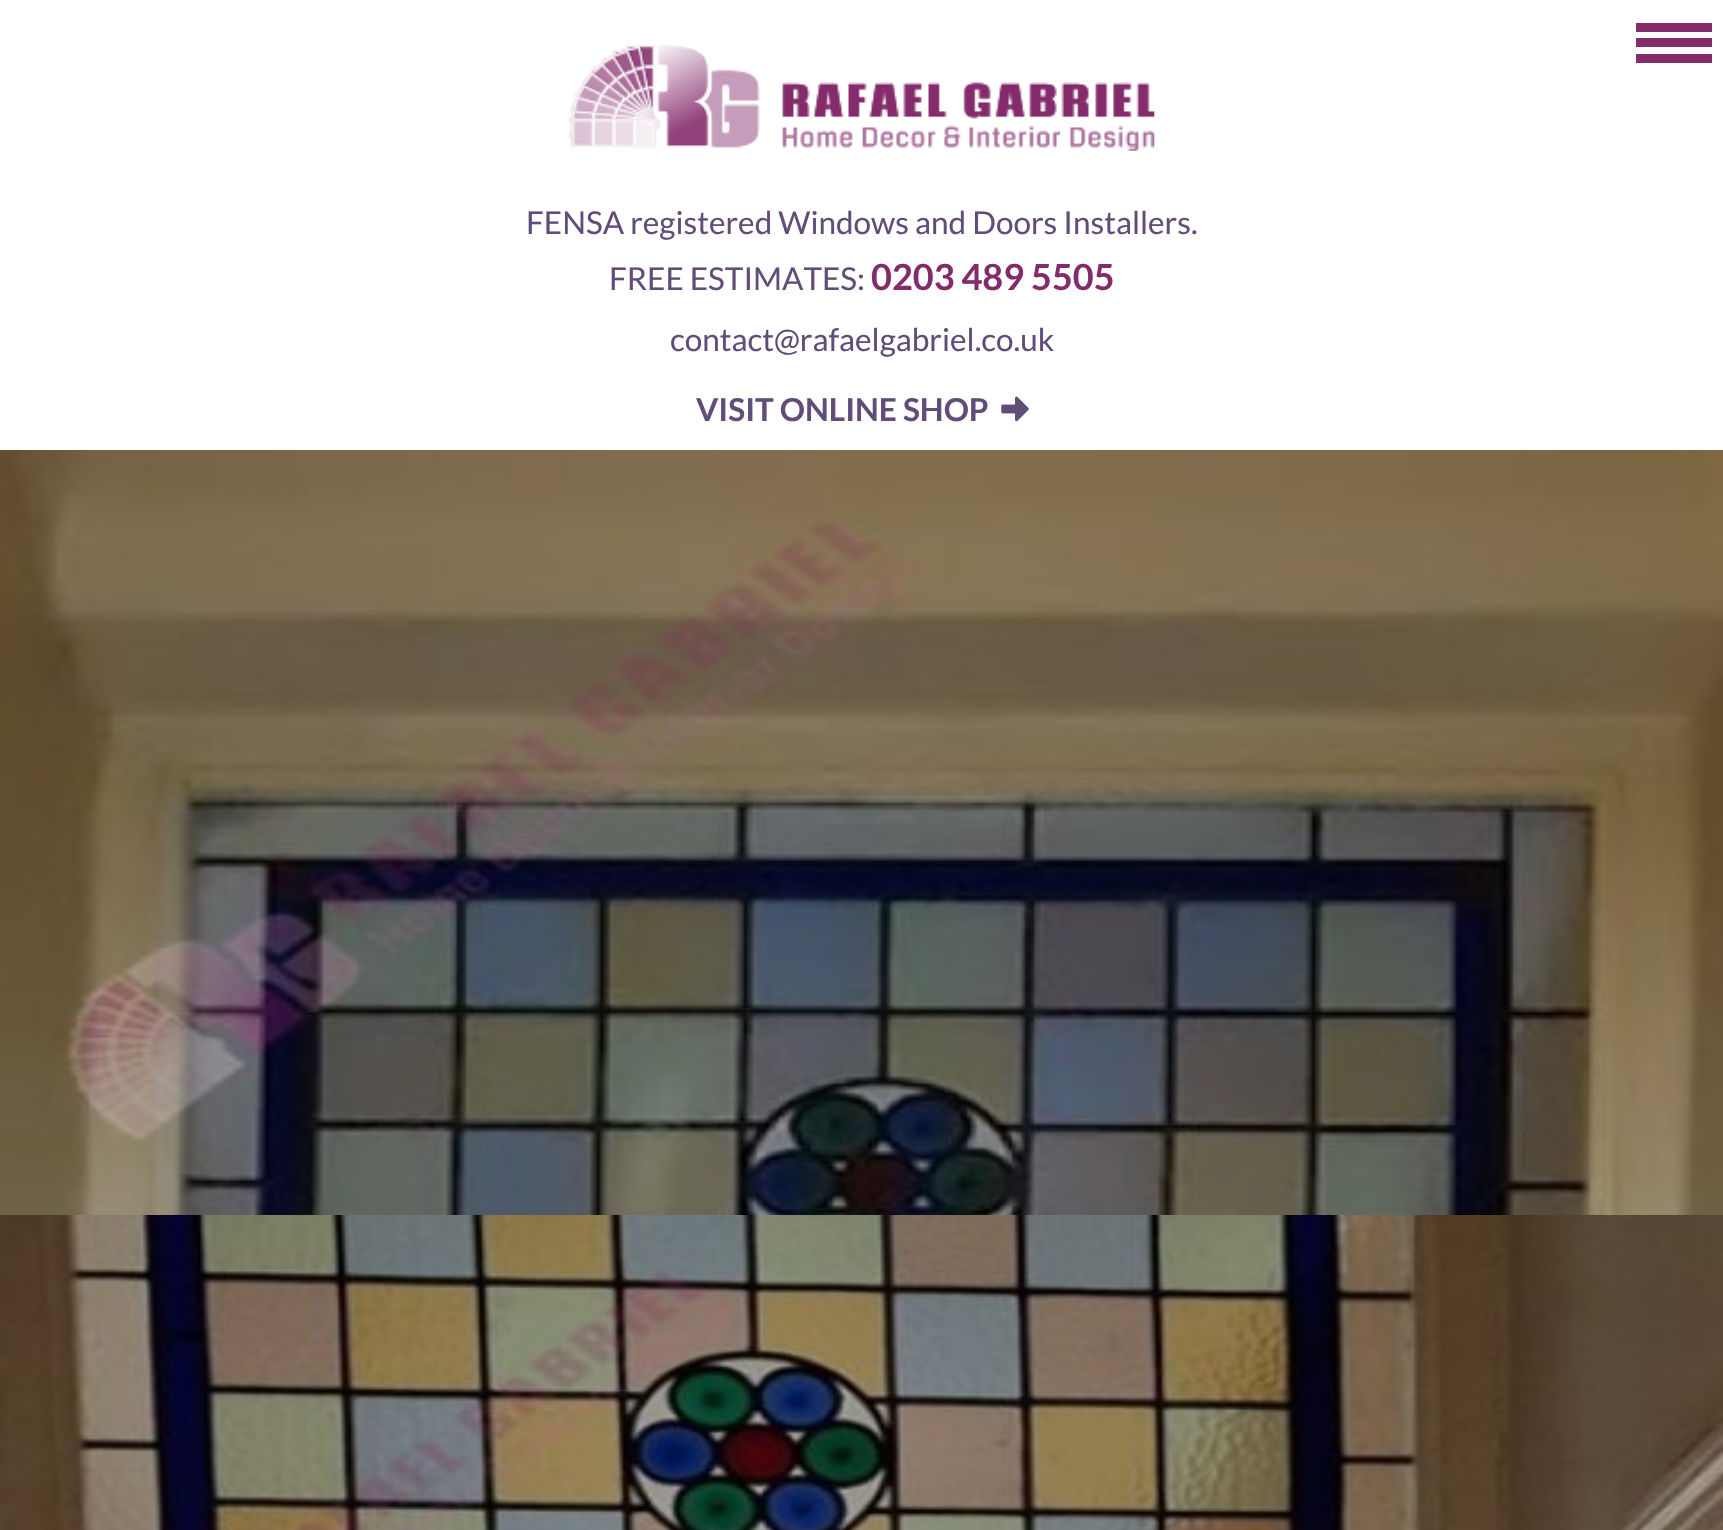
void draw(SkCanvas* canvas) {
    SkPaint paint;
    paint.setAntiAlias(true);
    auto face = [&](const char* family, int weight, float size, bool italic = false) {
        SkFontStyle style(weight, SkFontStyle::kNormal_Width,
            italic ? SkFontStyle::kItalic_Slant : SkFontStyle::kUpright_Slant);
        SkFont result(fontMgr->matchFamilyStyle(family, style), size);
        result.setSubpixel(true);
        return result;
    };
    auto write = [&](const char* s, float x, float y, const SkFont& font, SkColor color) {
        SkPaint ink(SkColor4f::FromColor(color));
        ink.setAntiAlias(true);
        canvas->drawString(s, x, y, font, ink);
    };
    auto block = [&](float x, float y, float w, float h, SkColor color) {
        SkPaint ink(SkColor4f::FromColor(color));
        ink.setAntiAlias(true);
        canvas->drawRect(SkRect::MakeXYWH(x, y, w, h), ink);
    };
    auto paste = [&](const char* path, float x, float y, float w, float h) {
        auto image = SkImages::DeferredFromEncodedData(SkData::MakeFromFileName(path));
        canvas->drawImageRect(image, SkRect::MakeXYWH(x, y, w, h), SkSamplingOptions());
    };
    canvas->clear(SK_ColorWHITE);
    paste("pic1.png", 569, 45, 586, 106);
    block(1636, 23, 76, 9, SkColorSetRGB(132, 43, 107));
    block(1636, 38, 76, 9, SkColorSetRGB(132, 43, 107));
    block(1636, 54, 76, 9, SkColorSetRGB(132, 43, 107));
    auto kFont1 = face("Lato", 400, 31.5f);
    write("FENSA registered Windows and Doors Installers.", 526, 234, kFont1, SkColorSetRGB(98, 76, 121));
    write("FREE ESTIMATES:", 609, 290, kFont1, SkColorSetRGB(98, 76, 121));
    auto kFont2 = face("Lato", 700, 36);
    write("0203 489 5505", 871, 290, kFont2, SkColorSetRGB(132, 43, 107));
    write("contact@rafaelgabriel.co.uk", 670, 351, kFont1, SkColorSetRGB(98, 76, 121));
    auto kFont3 = face("Lato", 700, 31.5f);
    write("VISIT ONLINE SHOP", 696, 421, kFont3, SkColorSetRGB(98, 76, 121));
    paste("pic2.png", 1001, 396, 28, 26);
    paste("pic3.png", 0, 450, 1723, 765);
    paste("pic4.png", 0, 1215, 1723, 315);
}
